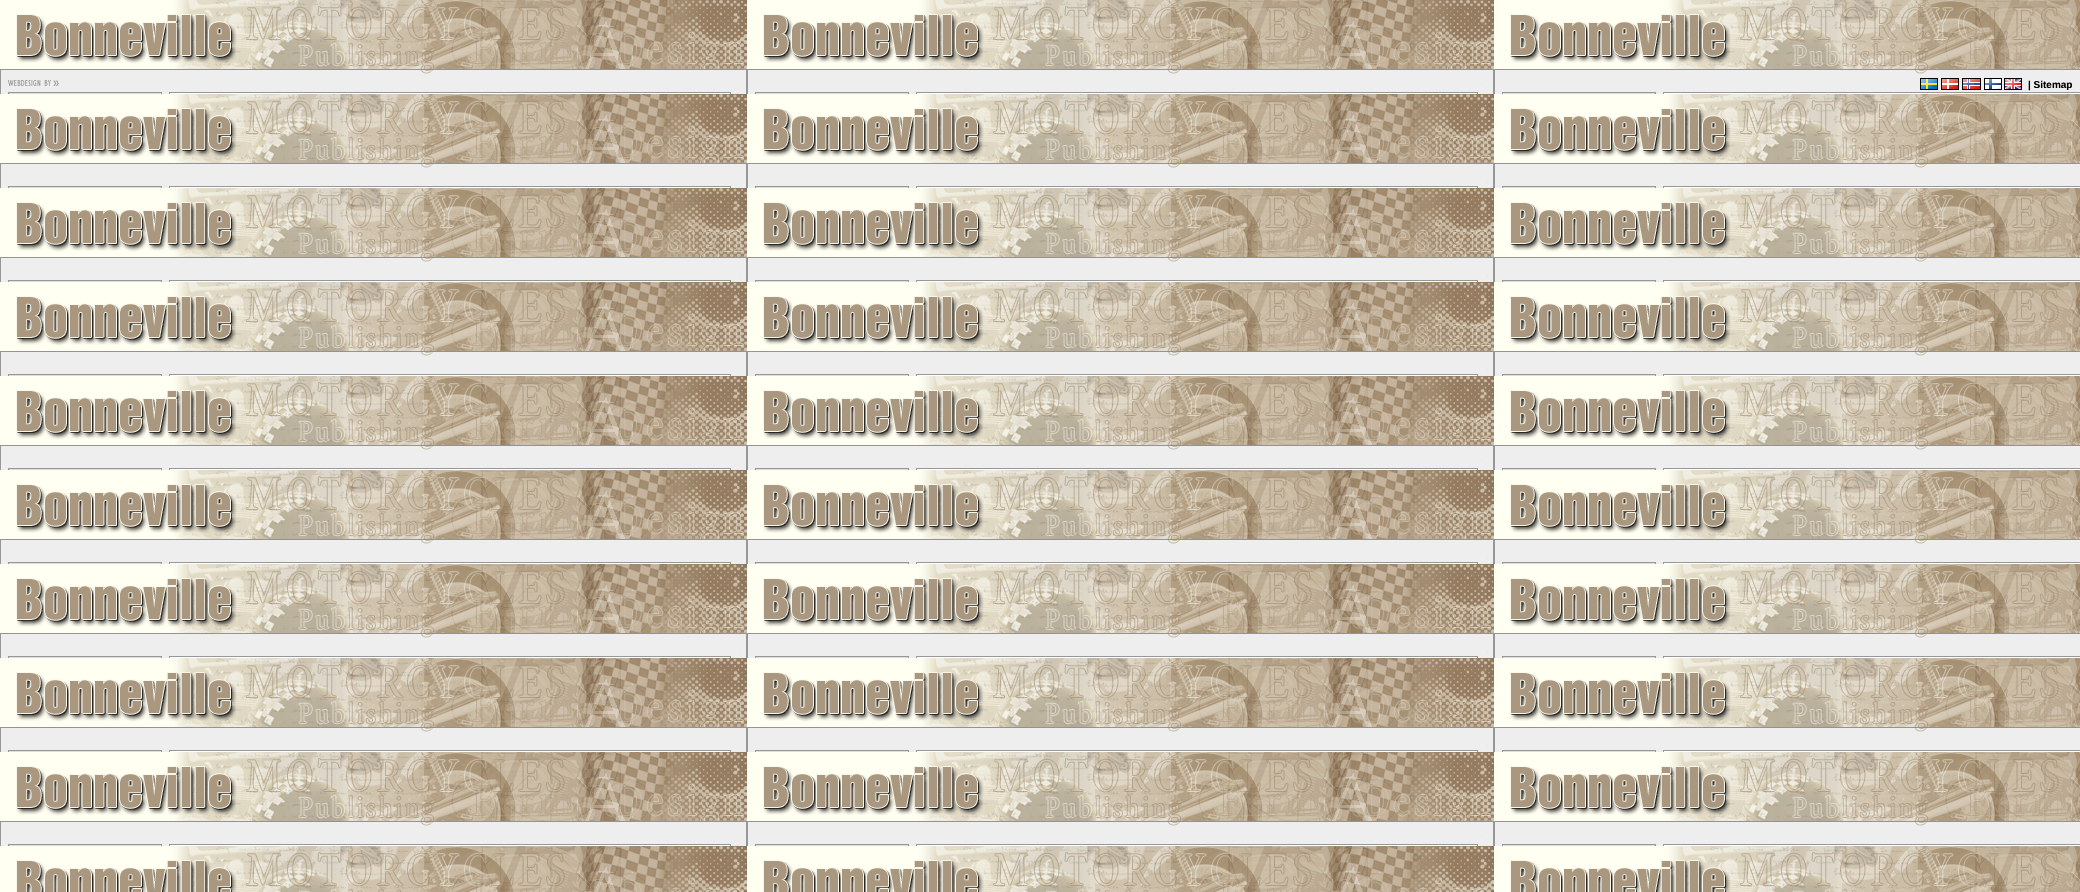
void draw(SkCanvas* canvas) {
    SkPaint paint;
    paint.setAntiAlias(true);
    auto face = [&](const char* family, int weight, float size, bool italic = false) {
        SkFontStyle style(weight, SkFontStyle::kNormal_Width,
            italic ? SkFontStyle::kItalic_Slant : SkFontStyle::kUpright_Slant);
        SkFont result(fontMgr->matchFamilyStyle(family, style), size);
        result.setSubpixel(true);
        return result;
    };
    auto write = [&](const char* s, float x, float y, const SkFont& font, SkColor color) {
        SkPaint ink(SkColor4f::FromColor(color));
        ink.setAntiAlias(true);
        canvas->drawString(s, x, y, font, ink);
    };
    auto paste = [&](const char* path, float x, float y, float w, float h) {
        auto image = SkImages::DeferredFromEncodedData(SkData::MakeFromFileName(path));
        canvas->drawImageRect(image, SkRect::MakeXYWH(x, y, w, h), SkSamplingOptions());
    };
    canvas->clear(SK_ColorWHITE);
    paste("pic1.png", 0, 0, 2080, 892);
    paste("pic2.png", 8, 80, 51, 6);
    paint.setStyle(SkPaint::kStroke_Style);
    paint.setStrokeWidth(1);
    paint.setColor(SK_ColorBLACK);
    canvas->drawRect(SkRect::MakeXYWH(1920.5f, 78.5f, 17, 11), paint);
    canvas->drawRect(SkRect::MakeXYWH(1941.5f, 78.5f, 17, 11), paint);
    canvas->drawRect(SkRect::MakeXYWH(1962.5f, 78.5f, 18, 11), paint);
    canvas->drawRect(SkRect::MakeXYWH(1984.5f, 78.5f, 17, 11), paint);
    canvas->drawRect(SkRect::MakeXYWH(2004.5f, 78.5f, 17, 11), paint);
    paste("pic3.png", 1921, 79, 16, 10);
    paste("pic4.png", 1942, 79, 16, 10);
    paste("pic5.png", 1963, 79, 17, 10);
    paste("pic6.png", 1985, 79, 16, 10);
    paste("pic7.png", 2005, 79, 16, 10);
    auto kFont1 = face("Liberation Sans", 700, 10);
    write("| Sitemap", 2028, 88, kFont1, SK_ColorBLACK);
}
